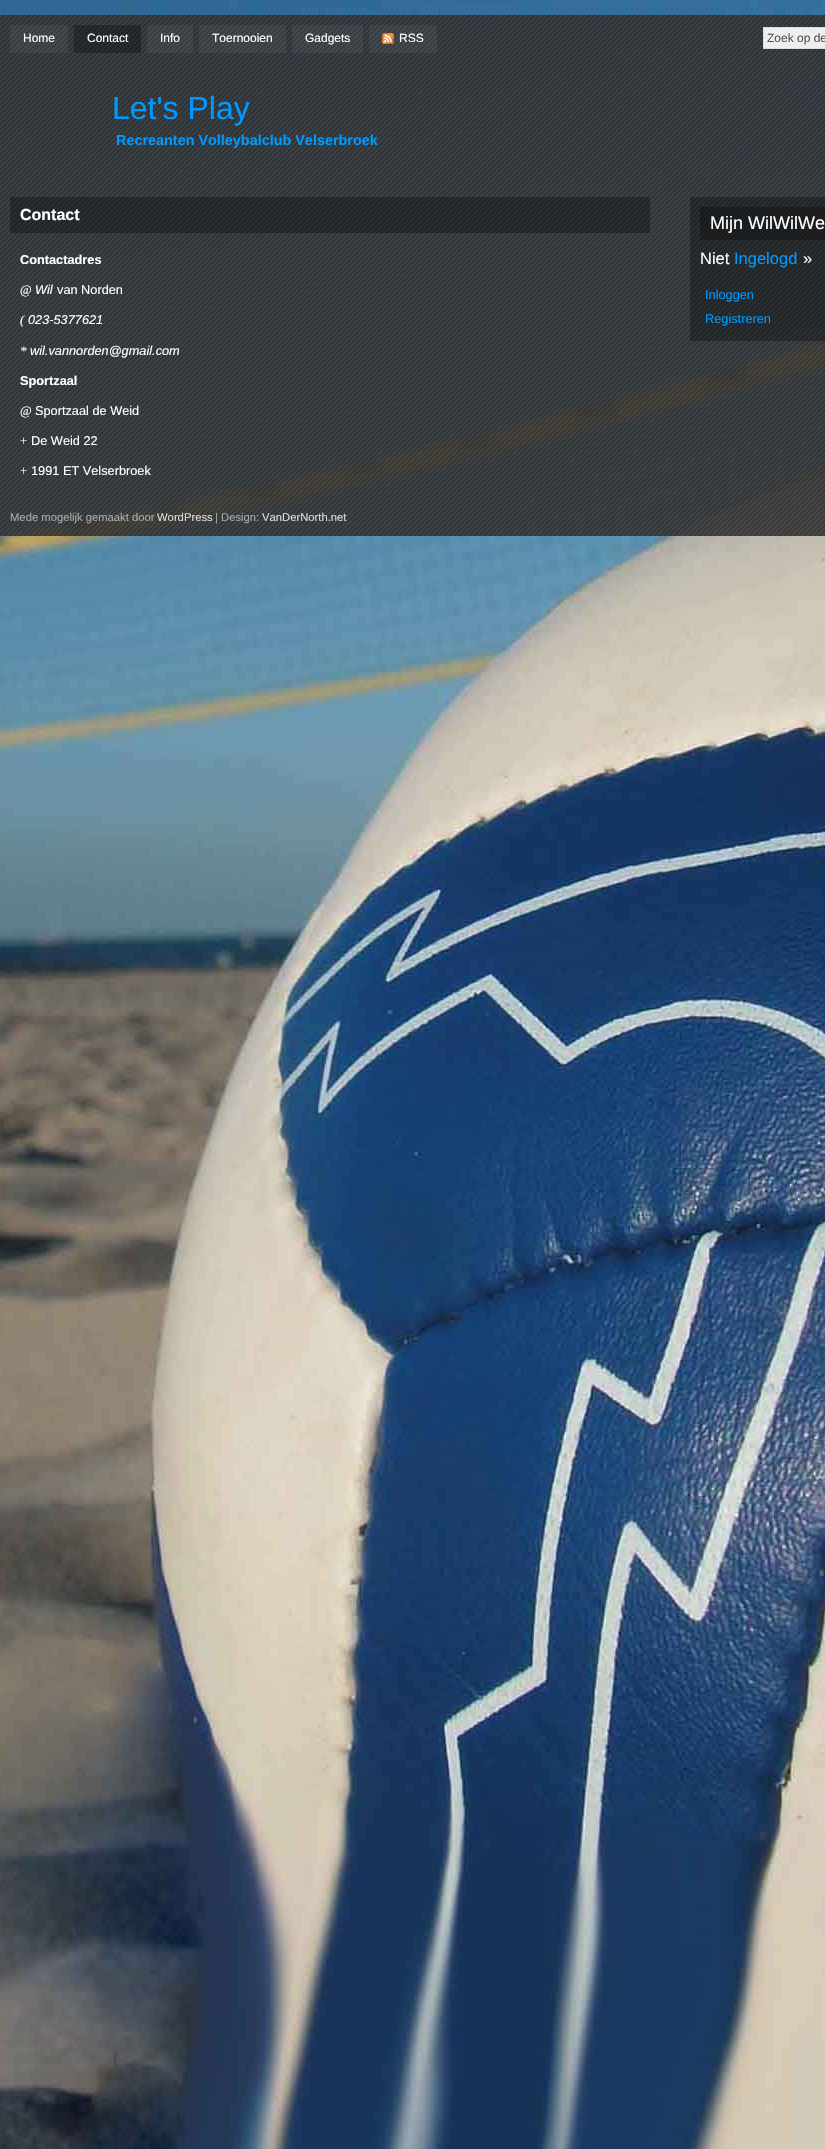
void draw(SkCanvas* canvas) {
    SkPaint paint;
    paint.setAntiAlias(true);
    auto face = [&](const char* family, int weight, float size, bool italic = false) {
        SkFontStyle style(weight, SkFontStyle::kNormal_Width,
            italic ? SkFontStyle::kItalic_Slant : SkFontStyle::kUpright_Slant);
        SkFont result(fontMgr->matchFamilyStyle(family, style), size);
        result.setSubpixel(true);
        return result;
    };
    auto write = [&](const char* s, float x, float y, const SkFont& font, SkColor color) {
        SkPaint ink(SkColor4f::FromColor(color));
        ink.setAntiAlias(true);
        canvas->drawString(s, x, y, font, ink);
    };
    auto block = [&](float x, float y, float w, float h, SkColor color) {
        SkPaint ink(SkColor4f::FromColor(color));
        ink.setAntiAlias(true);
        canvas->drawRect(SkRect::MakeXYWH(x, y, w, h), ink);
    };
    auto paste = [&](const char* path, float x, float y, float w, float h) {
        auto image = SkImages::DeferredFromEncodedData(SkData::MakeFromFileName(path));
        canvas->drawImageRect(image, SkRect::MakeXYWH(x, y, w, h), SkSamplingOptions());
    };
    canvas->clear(SK_ColorWHITE);
    paste("pic1.png", 0, 0, 825, 2149);
    paste("pic2.png", 0, 15, 825, 521);
    block(10, 25, 58, 28, SkColorSetARGB(13, 255, 255, 255));
    auto kFont1 = face("Liberation Sans", 400, 12);
    write("Home", 23, 42, kFont1, SK_ColorWHITE);
    block(74, 25, 67, 28, SkColorSetARGB(77, 0, 0, 0));
    write("Contact", 87, 42, kFont1, SK_ColorWHITE);
    block(147, 25, 46, 28, SkColorSetARGB(13, 255, 255, 255));
    write("Info", 160, 42, kFont1, SK_ColorWHITE);
    block(199, 25, 87, 28, SkColorSetARGB(13, 255, 255, 255));
    write("Toernooien", 212, 42, kFont1, SK_ColorWHITE);
    block(292, 25, 71, 28, SkColorSetARGB(13, 255, 255, 255));
    write("Gadgets", 305, 42, kFont1, SK_ColorWHITE);
    block(369, 25, 68, 28, SkColorSetARGB(13, 255, 255, 255));
    paste("pic3.png", 382, 33, 12, 11);
    write("RSS", 399, 42, kFont1, SK_ColorWHITE);
    paint.setColor(SkColorSetRGB(238, 238, 238));
    canvas->drawRect(SkRect::MakeXYWH(763.5f, 27.5f, 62, 21), paint);
    paint.setStyle(SkPaint::kStroke_Style);
    paint.setStrokeWidth(1);
    paint.setColor(SkColorSetRGB(221, 221, 221));
    canvas->drawRect(SkRect::MakeXYWH(763.5f, 27.5f, 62, 21), paint);
    write("Zoek op de", 767, 42, kFont1, SkColorSetRGB(85, 85, 85));
    auto kFont2 = face("Liberation Sans", 400, 32);
    write("Let's Play", 112, 119, kFont2, SkColorSetRGB(0, 154, 255));
    auto kFont3 = face("Liberation Sans", 700, 14.4f);
    write("Recreanten Volleybalclub Velserbroek", 116, 145, kFont3, SkColorSetRGB(0, 154, 255));
    block(10, 197, 640, 36, SkColorSetARGB(77, 0, 0, 0));
    auto kFont4 = face("Liberation Sans", 700, 16);
    write("Contact", 20, 220, kFont4, SK_ColorWHITE);
    auto kFont5 = face("Liberation Sans", 700, 12.75f);
    write("Contactadres", 20, 264, kFont5, SK_ColorWHITE);
    auto kFont6 = face("Liberation Serif", 400, 12.75f);
    write("@", 20, 294, kFont6, SK_ColorWHITE);
    auto kFont7 = face("Liberation Sans", 400, 12.75f, true);
    write("Wil", 35, 294, kFont7, SK_ColorWHITE);
    auto kFont8 = face("Liberation Sans", 400, 12.75f);
    write("van Norden", 57, 294, kFont8, SK_ColorWHITE);
    auto kFont9 = face("Liberation Serif", 400, 12.75f, true);
    write("(", 20, 324, kFont9, SK_ColorWHITE);
    write("023-5377621", 28, 324, kFont7, SK_ColorWHITE);
    write("*", 20, 355, kFont9, SK_ColorWHITE);
    write("wil.vannorden@gmail.com", 30, 355, kFont7, SK_ColorWHITE);
    write("Sportzaal", 20, 385, kFont5, SK_ColorWHITE);
    write("@", 20, 415, kFont6, SK_ColorWHITE);
    write("Sportzaal de Weid", 35, 415, kFont8, SK_ColorWHITE);
    write("+", 20, 445, kFont6, SK_ColorWHITE);
    write("De Weid 22", 31, 445, kFont8, SK_ColorWHITE);
    write("+", 20, 475, kFont6, SK_ColorWHITE);
    write("1991 ET Velserbroek", 31, 475, kFont8, SK_ColorWHITE);
    block(690, 197, 135, 144, SkColorSetARGB(77, 0, 0, 0));
    block(700, 207, 125, 33, SkColorSetARGB(77, 0, 0, 0));
    auto kFont10 = face("Liberation Sans", 400, 18);
    write("Mijn WilWilWe", 710, 229, kFont10, SK_ColorWHITE);
    auto kFont11 = face("Liberation Sans", 400, 16.5f);
    write("Niet", 700, 264, kFont11, SK_ColorWHITE);
    write("Ingelogd", 734, 264, kFont11, SkColorSetRGB(0, 154, 255));
    write("»", 803, 264, kFont11, SK_ColorWHITE);
    write("Inloggen", 705, 299, kFont8, SkColorSetRGB(0, 154, 255));
    write("Registreren", 705, 323, kFont8, SkColorSetRGB(0, 154, 255));
    auto kFont12 = face("Liberation Sans", 400, 11.25f);
    write("Mede mogelijk gemaakt door", 10, 521, kFont12, SkColorSetRGB(170, 170, 170));
    write("WordPress", 157, 521, kFont12, SkColorSetRGB(221, 221, 221));
    write("| Design:", 215, 521, kFont12, SkColorSetRGB(170, 170, 170));
    write("VanDerNorth.net", 262, 521, kFont12, SkColorSetRGB(221, 221, 221));
}
